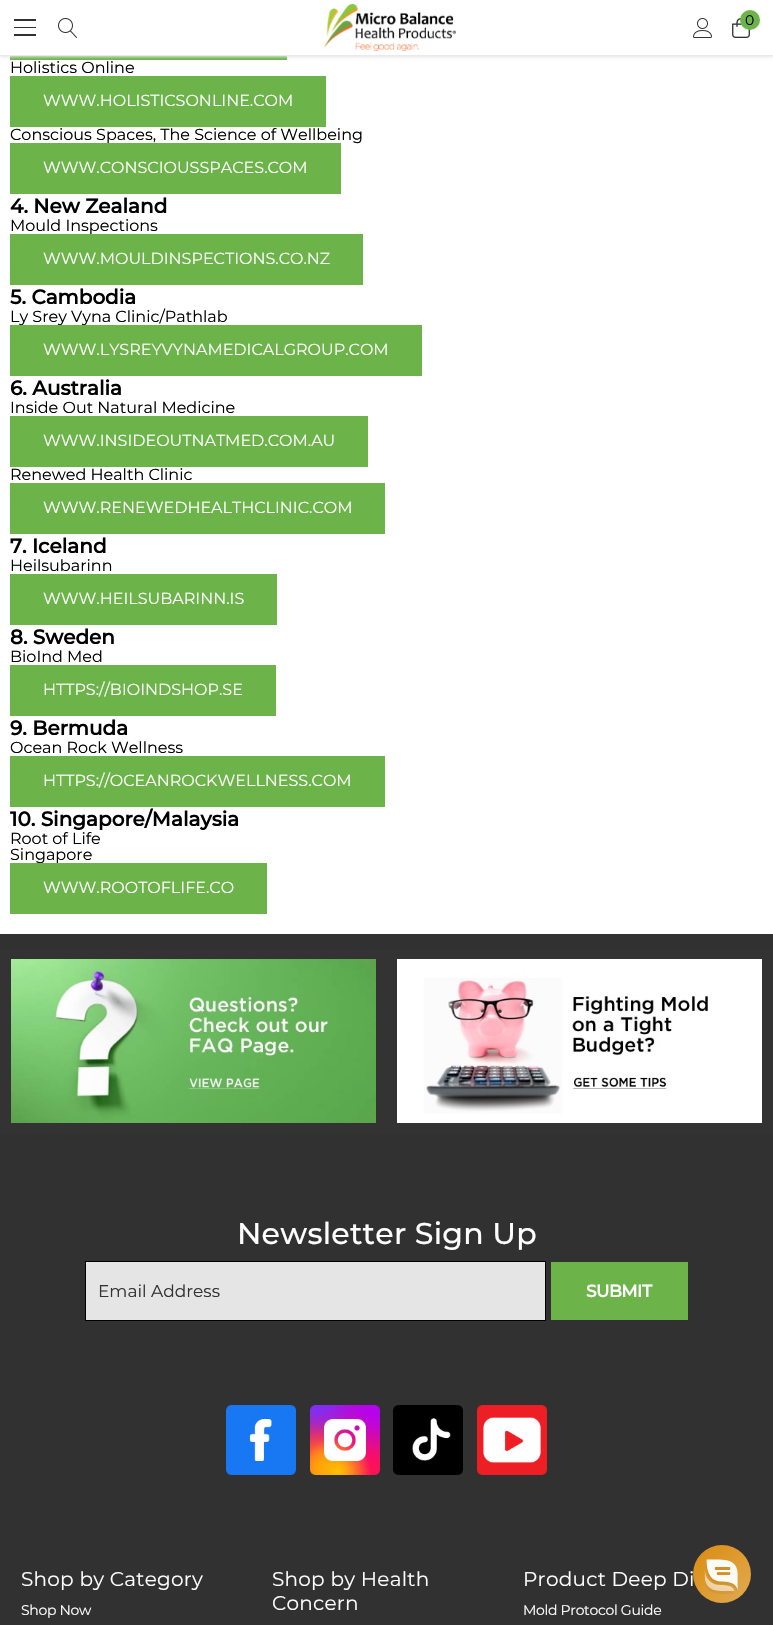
void draw(SkCanvas* canvas) {
    SkPaint paint;
    paint.setAntiAlias(true);
    auto face = [&](const char* family, int weight, float size, bool italic = false) {
        SkFontStyle style(weight, SkFontStyle::kNormal_Width,
            italic ? SkFontStyle::kItalic_Slant : SkFontStyle::kUpright_Slant);
        SkFont result(fontMgr->matchFamilyStyle(family, style), size);
        result.setSubpixel(true);
        return result;
    };
    auto write = [&](const char* s, float x, float y, const SkFont& font, SkColor color) {
        SkPaint ink(SkColor4f::FromColor(color));
        ink.setAntiAlias(true);
        canvas->drawString(s, x, y, font, ink);
    };
    auto writeSpaced = [&](const char* s, float x, float y, const SkFont& font, const SkPaint& ink, float letter, float word) {
        std::vector<SkGlyphID> glyphs(font.countText(s, strlen(s), SkTextEncoding::kUTF8));
        std::vector<float> xs(glyphs.size());
        font.textToGlyphs(s, strlen(s), SkTextEncoding::kUTF8, glyphs);
        font.getXPos(glyphs, xs, x);
        float extra = 0;
        for (size_t i = 0; i < glyphs.size(); i++) {
            xs[i] += extra;
            extra += letter + word * (glyphs[i] == font.unicharToGlyph(' '));
        }
        canvas->drawTextBlob(SkTextBlob::MakeFromPosHGlyphs(glyphs, xs, y, font), 0, 0, ink);
    };
    auto block = [&](float x, float y, float w, float h, SkColor color) {
        SkPaint ink(SkColor4f::FromColor(color));
        ink.setAntiAlias(true);
        canvas->drawRect(SkRect::MakeXYWH(x, y, w, h), ink);
    };
    auto paste = [&](const char* path, float x, float y, float w, float h) {
        auto image = SkImages::DeferredFromEncodedData(SkData::MakeFromFileName(path));
        canvas->drawImageRect(image, SkRect::MakeXYWH(x, y, w, h), SkSamplingOptions());
    };
    canvas->clear(SK_ColorWHITE);
    block(10, 56, 277, 4, SkColorSetRGB(108, 179, 74));
    paint.setColor(SkColorSetRGB(229, 229, 229));
    paint.setMaskFilter(SkMaskFilter::MakeBlur(kNormal_SkBlurStyle, 1.5f));
    canvas->drawRect(SkRect::MakeXYWH(0, 1, 773, 56), paint);
    paint.setMaskFilter(nullptr);
    block(0, 0, 773, 55, SK_ColorWHITE);
    block(0, 55, 773, 1, SkColorSetRGB(234, 234, 234));
    block(14, 27, 22, 1, SkColorSetRGB(49, 49, 49));
    block(14, 19, 22, 2, SkColorSetRGB(49, 49, 49));
    block(14, 34, 22, 2, SkColorSetRGB(49, 49, 49));
    paste("pic1.png", 58, 18, 19, 20);
    paste("pic2.png", 324, 4, 132, 47);
    paste("pic3.png", 693, 18, 19, 20);
    paste("pic4.png", 732, 18, 18, 20);
    paint.setColor(SkColorSetRGB(108, 179, 74));
    canvas->drawCircle(750, 20, 10, paint);
    auto kFont1 = face("Montserrat", 400, 14);
    write("0", 745, 25, kFont1, SK_ColorBLACK);
    auto kFont2 = face("Montserrat", 400, 16);
    write("Holistics Online", 10, 73, kFont2, SK_ColorBLACK);
    block(10, 76, 316, 51, SkColorSetRGB(108, 179, 74));
    write("WWW.HOLISTICSONLINE.COM", 43, 106, kFont2, SK_ColorWHITE);
    write("Conscious Spaces, The Science of Wellbeing", 10, 140, kFont2, SK_ColorBLACK);
    block(10, 143, 331, 51, SkColorSetRGB(108, 179, 74));
    write("WWW.CONSCIOUSSPACES.COM", 43, 173, kFont2, SK_ColorWHITE);
    auto kFont3 = face("Montserrat", 700, 20);
    write("4. New Zealand", 10, 213, kFont3, SK_ColorBLACK);
    write("Mould Inspections", 10, 231, kFont2, SK_ColorBLACK);
    block(10, 234, 353, 51, SkColorSetRGB(108, 179, 74));
    write("WWW.MOULDINSPECTIONS.CO.NZ", 43, 264, kFont2, SK_ColorWHITE);
    write("5. Cambodia", 10, 304, kFont3, SK_ColorBLACK);
    write("Ly Srey Vyna Clinic/Pathlab", 10, 322, kFont2, SK_ColorBLACK);
    block(10, 325, 412, 51, SkColorSetRGB(108, 179, 74));
    write("WWW.LYSREYVYNAMEDICALGROUP.COM", 43, 355, kFont2, SK_ColorWHITE);
    write("6. Australia", 10, 395, kFont3, SK_ColorBLACK);
    write("Inside Out Natural Medicine", 10, 413, kFont2, SK_ColorBLACK);
    block(10, 416, 358, 51, SkColorSetRGB(108, 179, 74));
    write("WWW.INSIDEOUTNATMED.COM.AU", 43, 446, kFont2, SK_ColorWHITE);
    write("Renewed Health Clinic", 10, 480, kFont2, SK_ColorBLACK);
    block(10, 483, 375, 51, SkColorSetRGB(108, 179, 74));
    write("WWW.RENEWEDHEALTHCLINIC.COM", 43, 513, kFont2, SK_ColorWHITE);
    write("7. Iceland", 10, 553, kFont3, SK_ColorBLACK);
    write("Heilsubarinn", 10, 571, kFont2, SK_ColorBLACK);
    block(10, 574, 267, 51, SkColorSetRGB(108, 179, 74));
    write("WWW.HEILSUBARINN.IS", 43, 604, kFont2, SK_ColorWHITE);
    write("8. Sweden", 10, 644, kFont3, SK_ColorBLACK);
    write("BioInd Med", 10, 662, kFont2, SK_ColorBLACK);
    block(10, 665, 266, 51, SkColorSetRGB(108, 179, 74));
    write("HTTPS://BIOINDSHOP.SE", 43, 695, kFont2, SK_ColorWHITE);
    write("9. Bermuda", 10, 735, kFont3, SK_ColorBLACK);
    write("Ocean Rock Wellness", 10, 753, kFont2, SK_ColorBLACK);
    block(10, 756, 375, 51, SkColorSetRGB(108, 179, 74));
    write("HTTPS://OCEANROCKWELLNESS.COM", 43, 786, kFont2, SK_ColorWHITE);
    write("10. Singapore/Malaysia", 10, 826, kFont3, SK_ColorBLACK);
    write("Root of Life", 10, 844, kFont2, SK_ColorBLACK);
    write("Singapore", 10, 860, kFont2, SK_ColorBLACK);
    block(10, 863, 257, 51, SkColorSetRGB(108, 179, 74));
    write("WWW.ROOTOFLIFE.CO", 43, 893, kFont2, SK_ColorWHITE);
    block(0, 934, 773, 15, SkColorSetRGB(49, 49, 49));
    block(0, 949, 773, 185, SkColorSetRGB(51, 51, 51));
    paste("pic5.png", 11, 959, 365, 164);
    paste("pic6.png", 397, 959, 365, 164);
    block(0, 1134, 773, 491, SkColorSetRGB(49, 49, 49));
    auto kFont4 = face("Montserrat", 500, 30);
    paint.setColor(SK_ColorWHITE);
    writeSpaced("Newsletter Sign Up", 237, 1244, kFont4, paint, 0.25f, 0);
    paint.setColor(SkColorSetRGB(229, 229, 229));
    canvas->drawRect(SkRect::MakeXYWH(85.5f, 1261.5f, 460, 59), paint);
    paint.setStyle(SkPaint::kStroke_Style);
    paint.setStrokeWidth(1);
    paint.setColor(SK_ColorBLACK);
    canvas->drawRect(SkRect::MakeXYWH(85.5f, 1261.5f, 460, 59), paint);
    auto kFont5 = face("Montserrat", 400, 17);
    write("Email Address", 98, 1297, kFont5, SkColorSetRGB(50, 50, 50));
    block(551, 1262, 137, 58, SkColorSetRGB(108, 179, 74));
    auto kFont6 = face("Montserrat", 700, 17);
    paint.setStyle(SkPaint::kFill_Style);
    paint.setColor(SK_ColorWHITE);
    writeSpaced("SUBMIT", 586, 1297, kFont6, paint, -0.5f, 0);
    paste("pic7.png", 226, 1405, 70, 70);
    paste("pic8.png", 310, 1405, 70, 70);
    paste("pic9.png", 393, 1405, 70, 70);
    paste("pic10.png", 477, 1405, 70, 70);
    auto kFont7 = face("Montserrat", 400, 20);
    writeSpaced("Shop by Category", 21, 1586, kFont7, paint, 0.25f, 0);
    writeSpaced("Shop Now", 21, 1615, kFont1, paint, -0.3f, 0);
    writeSpaced("Shop by Health", 272, 1586, kFont7, paint, 0.25f, 0);
    writeSpaced("Concern", 272, 1610, kFont7, paint, 0.25f, 0);
    writeSpaced("Product Deep Di", 523, 1586, kFont7, paint, 0.25f, 0);
    writeSpaced("Mold Protocol Guide", 523, 1615, kFont1, paint, -0.3f, 0);
    {
        const SkColor colors[] = {SkColorSetARGB(242, 227, 144, 12), SkColorSetARGB(242, 235, 177, 85)};
        const float stops[] = {0, 1};
        const SkPoint ends[] = {{693, 1545}, {751, 1603}};
        paint.setShader(SkGradientShader::MakeLinear(ends, colors, stops, 2, SkTileMode::kClamp));
        paint.setAlpha(255);
    }
    canvas->drawCircle(722, 1574, 29, paint);
    paste("pic11.png", 704, 1559, 34, 35);
}
